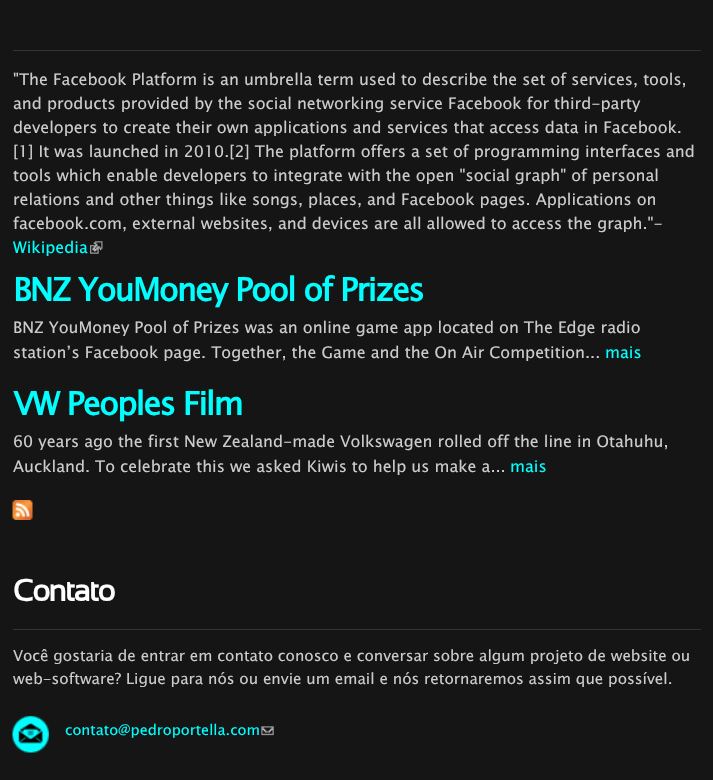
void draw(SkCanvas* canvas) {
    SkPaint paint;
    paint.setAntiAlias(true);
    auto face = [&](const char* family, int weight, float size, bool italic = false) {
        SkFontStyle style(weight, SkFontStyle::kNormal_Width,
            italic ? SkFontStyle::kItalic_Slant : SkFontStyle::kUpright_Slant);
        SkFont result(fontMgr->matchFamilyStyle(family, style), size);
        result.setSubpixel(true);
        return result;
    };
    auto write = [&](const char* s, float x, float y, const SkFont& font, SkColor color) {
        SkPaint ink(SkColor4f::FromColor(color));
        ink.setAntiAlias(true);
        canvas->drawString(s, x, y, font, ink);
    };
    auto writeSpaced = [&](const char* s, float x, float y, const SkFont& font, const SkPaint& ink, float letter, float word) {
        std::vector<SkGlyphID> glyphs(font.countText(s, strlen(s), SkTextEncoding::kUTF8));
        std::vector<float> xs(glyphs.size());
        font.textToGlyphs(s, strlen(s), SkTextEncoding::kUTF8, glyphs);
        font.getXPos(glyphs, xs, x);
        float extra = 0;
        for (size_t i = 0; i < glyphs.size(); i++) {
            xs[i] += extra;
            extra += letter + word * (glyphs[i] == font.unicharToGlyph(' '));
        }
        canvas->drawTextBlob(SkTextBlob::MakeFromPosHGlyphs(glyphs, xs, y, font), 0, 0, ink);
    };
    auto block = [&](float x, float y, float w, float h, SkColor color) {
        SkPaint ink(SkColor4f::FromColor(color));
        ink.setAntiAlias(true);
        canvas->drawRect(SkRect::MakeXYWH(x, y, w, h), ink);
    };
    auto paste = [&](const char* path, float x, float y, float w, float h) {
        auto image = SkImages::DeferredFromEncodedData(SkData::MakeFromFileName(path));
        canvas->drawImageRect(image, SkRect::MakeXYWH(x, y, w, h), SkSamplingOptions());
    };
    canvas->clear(SkColorSetRGB(21, 21, 21));
    block(13, 50, 688, 1, SkColorSetRGB(52, 52, 52));
    auto kFont1 = face("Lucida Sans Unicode", 400, 16);
    write("\"The Facebook Platform is an umbrella term used to describe the set of services, tools,", 13, 85, kFont1, SkColorSetRGB(204, 204, 204));
    write("and products provided by the social networking service Facebook for third-party", 13, 109, kFont1, SkColorSetRGB(204, 204, 204));
    write("developers to create their own applications and services that access data in Facebook.", 13, 133, kFont1, SkColorSetRGB(204, 204, 204));
    write("[1] It was launched in 2010.[2] The platform offers a set of programming interfaces and", 13, 157, kFont1, SkColorSetRGB(204, 204, 204));
    write("tools which enable developers to integrate with the open \"social graph\" of personal", 13, 181, kFont1, SkColorSetRGB(204, 204, 204));
    write("relations and other things like songs, places, and Facebook pages. Applications on", 13, 205, kFont1, SkColorSetRGB(204, 204, 204));
    write("facebook.com, external websites, and devices are all allowed to access the graph.\"-", 13, 229, kFont1, SkColorSetRGB(204, 204, 204));
    write("Wikipedia", 13, 253, kFont1, SkColorSetRGB(0, 255, 255));
    paste("pic1.png", 90, 241, 13, 13);
    auto kFont2 = face("Lucida Sans Unicode", 700, 32);
    paint.setColor(SkColorSetRGB(0, 255, 255));
    writeSpaced("BNZ YouMoney Pool of Prizes", 13, 301, kFont2, paint, -1.6f, 0);
    write("BNZ YouMoney Pool of Prizes was an online game app located on The Edge radio", 13, 333, kFont1, SkColorSetRGB(204, 204, 204));
    write("station’s Facebook page. Together, the Game and the On Air Competition...", 13, 358, kFont1, SkColorSetRGB(204, 204, 204));
    write("mais", 605, 358, kFont1, SkColorSetRGB(0, 255, 255));
    writeSpaced("VW Peoples Film", 13, 415, kFont2, paint, -1.6f, 0);
    write("60 years ago the first New Zealand-made Volkswagen rolled off the line in Otahuhu,", 13, 447, kFont1, SkColorSetRGB(204, 204, 204));
    write("Auckland. To celebrate this we asked Kiwis to help us make a...", 13, 472, kFont1, SkColorSetRGB(204, 204, 204));
    write("mais", 510, 472, kFont1, SkColorSetRGB(0, 255, 255));
    paste("pic2.png", 12, 500, 21, 20);
    auto kFont3 = face("Sansation", 700, 30.5f);
    paint.setColor(SK_ColorWHITE);
    writeSpaced("Contato", 13, 601, kFont3, paint, -1.5f, 0);
    block(13, 629, 688, 1, SkColorSetRGB(52, 52, 52));
    auto kFont4 = face("Lucida Sans Unicode", 400, 15.2f);
    write("Você gostaria de entrar em contato conosco e conversar sobre algum projeto de website ou", 13, 661, kFont4, SkColorSetRGB(204, 204, 204));
    write("web-software? Ligue para nós ou envie um email e nós retornaremos assim que possível.", 13, 684, kFont4, SkColorSetRGB(204, 204, 204));
    paste("pic3.png", 12, 716, 37, 37);
    auto kFont5 = face("Lucida Sans Unicode", 400, 14.5f);
    write("contato@pedroportella.com", 65, 735, kFont5, SkColorSetRGB(0, 255, 255));
    paste("pic4.png", 261, 726, 13, 10);
}
